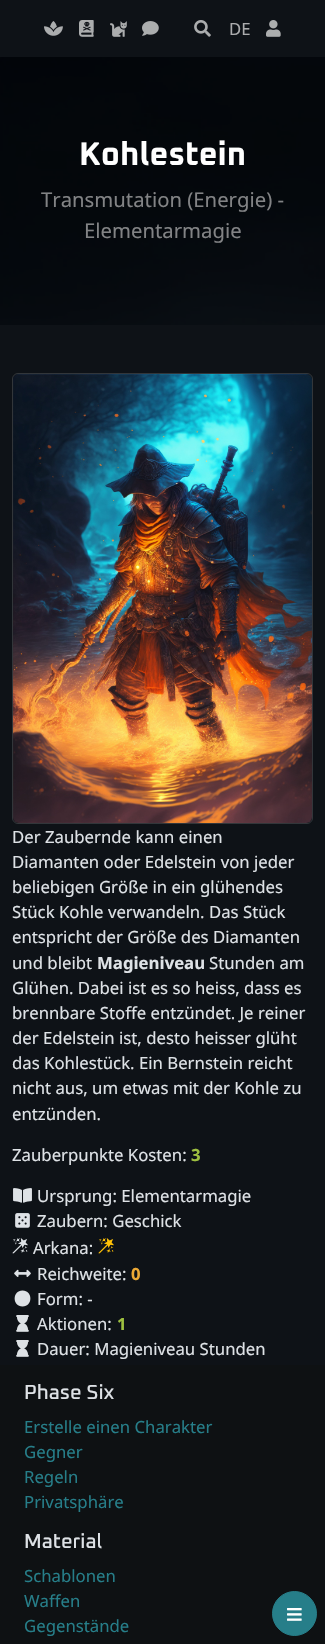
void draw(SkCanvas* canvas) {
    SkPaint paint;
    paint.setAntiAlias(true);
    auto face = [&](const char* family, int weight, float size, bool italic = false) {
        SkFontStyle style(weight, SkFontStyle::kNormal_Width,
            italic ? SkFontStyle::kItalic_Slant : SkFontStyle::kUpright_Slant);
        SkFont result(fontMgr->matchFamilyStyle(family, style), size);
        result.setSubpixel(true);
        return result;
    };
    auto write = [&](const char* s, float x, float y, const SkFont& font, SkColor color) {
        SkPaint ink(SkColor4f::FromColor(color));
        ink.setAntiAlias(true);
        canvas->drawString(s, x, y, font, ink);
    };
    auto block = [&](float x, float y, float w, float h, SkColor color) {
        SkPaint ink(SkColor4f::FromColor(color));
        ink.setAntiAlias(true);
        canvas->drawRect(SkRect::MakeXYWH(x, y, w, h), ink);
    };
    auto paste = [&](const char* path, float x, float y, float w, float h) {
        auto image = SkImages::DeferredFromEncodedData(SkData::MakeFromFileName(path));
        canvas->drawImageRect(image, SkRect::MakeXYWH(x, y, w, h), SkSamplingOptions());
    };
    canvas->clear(SkColorSetRGB(14, 18, 23));
    paste("pic1.png", 44, 21, 19, 15);
    paste("pic2.png", 79, 20, 15, 17);
    paste("pic3.png", 110, 21, 17, 16);
    paste("pic4.png", 142, 21, 17, 15);
    paste("pic5.png", 194, 20, 17, 17);
    auto kFont1 = face("Noto Sans", 400, 16.75f);
    write("DE", 229, 35, kFont1, SkColorSetRGB(171, 172, 174));
    paste("pic6.png", 266, 20, 15, 17);
    paste("pic7.png", 0, 57, 325, 268);
    auto kFont2 = face("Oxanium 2", 200, 32.5f);
    write("Kohlestein", 79, 165, kFont2, SK_ColorWHITE);
    auto kFont3 = face("Noto Sans", 400, 20.3f);
    write("Transmutation (Energie) -", 41, 207, kFont3, SkColorSetRGB(130, 131, 133));
    write("Elementarmagie", 84, 238, kFont3, SkColorSetRGB(130, 131, 133));
    paint.setStyle(SkPaint::kStroke_Style);
    paint.setStrokeWidth(1);
    paint.setColor(SkColorSetRGB(50, 54, 58));
    canvas->drawRoundRect(SkRect::MakeXYWH(12.5f, 373.5f, 300, 450), 5.5f, 5.5f, paint);
    paste("pic8.png", 13, 374, 299, 449);
    write("Der Zaubernde kann einen", 12, 843, kFont1, SkColorSetRGB(222, 226, 230));
    write("Diamanten oder Edelstein von jeder", 12, 868, kFont1, SkColorSetRGB(222, 226, 230));
    write("beliebigen Größe in ein glühendes", 12, 893, kFont1, SkColorSetRGB(222, 226, 230));
    write("Stück Kohle verwandeln. Das Stück", 12, 918, kFont1, SkColorSetRGB(222, 226, 230));
    write("entspricht der Größe des Diamanten", 12, 943, kFont1, SkColorSetRGB(222, 226, 230));
    write("und bleibt", 12, 969, kFont1, SkColorSetRGB(222, 226, 230));
    auto kFont4 = face("Noto Sans", 700, 16.75f);
    write("Magieniveau", 97, 969, kFont4, SkColorSetRGB(222, 226, 230));
    write("Stunden am", 209, 969, kFont1, SkColorSetRGB(222, 226, 230));
    write("Glühen. Dabei ist es so heiss, dass es", 12, 994, kFont1, SkColorSetRGB(222, 226, 230));
    write("brennbare Stoffe entzündet. Je reiner", 12, 1019, kFont1, SkColorSetRGB(222, 226, 230));
    write("der Edelstein ist, desto heisser glüht", 12, 1044, kFont1, SkColorSetRGB(222, 226, 230));
    write("das Kohlestück. Ein Bernstein reicht", 12, 1069, kFont1, SkColorSetRGB(222, 226, 230));
    write("nicht aus, um etwas mit der Kohle zu", 12, 1094, kFont1, SkColorSetRGB(222, 226, 230));
    write("entzünden.", 12, 1120, kFont1, SkColorSetRGB(222, 226, 230));
    write("Zauberpunkte Kosten:", 12, 1161, kFont1, SkColorSetRGB(222, 226, 230));
    write("3", 191, 1161, kFont4, SkColorSetRGB(158, 192, 64));
    paste("pic9.png", 13, 1188, 19, 15);
    write("Ursprung: Elementarmagie", 37, 1202, kFont1, SkColorSetRGB(222, 226, 230));
    paste("pic10.png", 15, 1213, 15, 15);
    write("Zaubern: Geschick", 37, 1227, kFont1, SkColorSetRGB(222, 226, 230));
    paste("pic11.png", 12, 1238, 16, 16);
    write("Arkana:", 33, 1254, kFont1, SkColorSetRGB(222, 226, 230));
    paste("pic12.png", 98, 1238, 16, 16);
    paste("pic13.png", 14, 1269, 17, 8);
    write("Reichweite:", 37, 1280, kFont1, SkColorSetRGB(222, 226, 230));
    write("0", 131, 1280, kFont4, SkColorSetRGB(236, 169, 53));
    paint.setStyle(SkPaint::kFill_Style);
    paint.setColor(SkColorSetRGB(222, 226, 230));
    canvas->drawPath(SkPathBuilder().moveTo(22.5f, 1290.5f).cubicTo(12, 1290.5f, 12, 1306.5f, 22.5f, 1306.5f).cubicTo(33, 1306.5f, 33, 1290.5f, 22.5f, 1290.5f).close().detach(), paint);
    write("Form: -", 37, 1305, kFont1, SkColorSetRGB(222, 226, 230));
    paste("pic14.png", 16, 1315, 13, 17);
    write("Aktionen:", 37, 1330, kFont1, SkColorSetRGB(222, 226, 230));
    write("1", 117, 1330, kFont4, SkColorSetRGB(158, 192, 64));
    paste("pic14.png", 16, 1340, 13, 17);
    write("Dauer: Magieniveau Stunden", 37, 1355, kFont1, SkColorSetRGB(222, 226, 230));
    block(0, 1365, 325, 279, SkColorSetRGB(14, 17, 19));
    auto kFont5 = face("Oxanium", 200, 20.3f);
    write("Phase Six", 24, 1399, kFont5, SkColorSetRGB(222, 226, 230));
    write("Erstelle einen Charakter", 24, 1433, kFont1, SkColorSetRGB(38, 126, 137));
    write("Gegner", 24, 1458, kFont1, SkColorSetRGB(38, 126, 137));
    write("Regeln", 24, 1483, kFont1, SkColorSetRGB(38, 126, 137));
    write("Privatsphäre", 24, 1508, kFont1, SkColorSetRGB(38, 126, 137));
    write("Material", 24, 1548, kFont5, SkColorSetRGB(222, 226, 230));
    write("Schablonen", 24, 1582, kFont1, SkColorSetRGB(38, 126, 137));
    write("Waffen", 24, 1607, kFont1, SkColorSetRGB(38, 126, 137));
    write("Gegenstände", 24, 1632, kFont1, SkColorSetRGB(38, 126, 137));
    paint.setColor(SkColorSetRGB(38, 126, 137));
    canvas->drawCircle(294.5f, 1613.5f, 22, paint);
    paint.setStyle(SkPaint::kStroke_Style);
    canvas->drawCircle(294.5f, 1613.5f, 22, paint);
    paste("pic15.png", 287, 1608, 15, 13);
}
